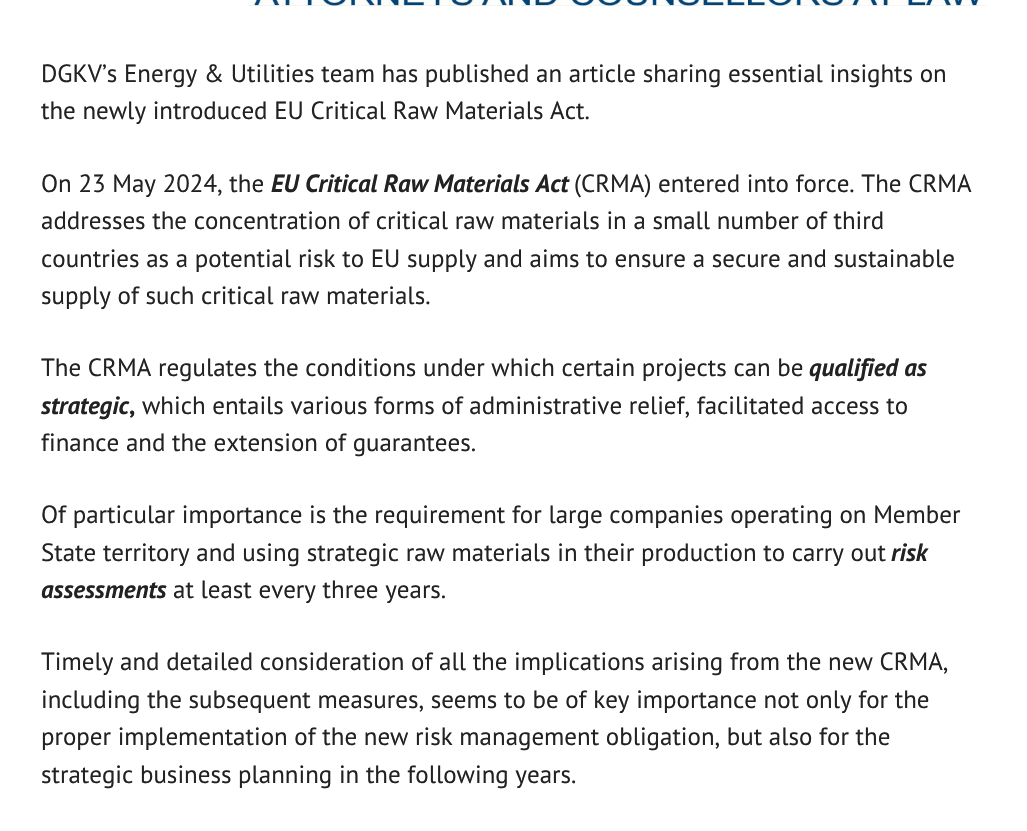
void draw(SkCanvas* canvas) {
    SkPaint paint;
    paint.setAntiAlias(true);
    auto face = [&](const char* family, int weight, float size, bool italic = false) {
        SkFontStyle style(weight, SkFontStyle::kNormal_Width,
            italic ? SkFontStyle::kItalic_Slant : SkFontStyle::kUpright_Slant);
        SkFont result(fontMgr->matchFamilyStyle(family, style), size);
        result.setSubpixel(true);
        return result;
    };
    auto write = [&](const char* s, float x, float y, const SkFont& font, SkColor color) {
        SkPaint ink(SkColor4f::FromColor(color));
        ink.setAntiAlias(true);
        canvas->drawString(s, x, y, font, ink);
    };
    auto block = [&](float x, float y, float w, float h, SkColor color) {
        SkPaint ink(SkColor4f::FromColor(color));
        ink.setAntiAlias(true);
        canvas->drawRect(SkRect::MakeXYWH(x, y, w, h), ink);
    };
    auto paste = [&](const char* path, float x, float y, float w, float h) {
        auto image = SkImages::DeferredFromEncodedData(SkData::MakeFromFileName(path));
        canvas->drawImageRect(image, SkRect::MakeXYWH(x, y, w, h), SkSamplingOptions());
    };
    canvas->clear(SK_ColorWHITE);
    block(249, 5, 738, 1, SkColorSetRGB(236, 236, 228));
    paste("pic1.png", 249, 0, 738, 6);
    auto kFont1 = face("PT Sans", 400, 24.95f);
    write("DGKV’s Energy & Utilities team has published an article sharing essential insights on", 41, 82, kFont1, SkColorSetRGB(34, 34, 34));
    write("the newly introduced EU Critical Raw Materials Act.", 41, 119, kFont1, SkColorSetRGB(34, 34, 34));
    write("On 23 May 2024, the", 41, 192, kFont1, SkColorSetRGB(34, 34, 34));
    auto kFont2 = face("PT Sans", 700, 24.95f, true);
    write("EU Critical Raw Materials Act", 271, 192, kFont2, SkColorSetRGB(34, 34, 34));
    write("(CRMA) entered into force. The CRMA", 574, 192, kFont1, SkColorSetRGB(34, 34, 34));
    write("addresses the concentration of critical raw materials in a small number of third", 41, 229, kFont1, SkColorSetRGB(34, 34, 34));
    write("countries as a potential risk to EU supply and aims to ensure a secure and sustainable", 41, 267, kFont1, SkColorSetRGB(34, 34, 34));
    write("supply of such critical raw materials.", 41, 304, kFont1, SkColorSetRGB(34, 34, 34));
    write("The CRMA regulates the conditions under which certain projects can be", 41, 376, kFont1, SkColorSetRGB(34, 34, 34));
    write("qualified as", 809, 376, kFont2, SkColorSetRGB(34, 34, 34));
    write("strategic", 41, 414, kFont2, SkColorSetRGB(34, 34, 34));
    auto kFont3 = face("PT Sans", 700, 24.95f);
    write(",", 129, 414, kFont3, SkColorSetRGB(34, 34, 34));
    write("which entails various forms of administrative relief, facilitated access to", 142, 414, kFont1, SkColorSetRGB(34, 34, 34));
    write("finance and the extension of guarantees.", 41, 451, kFont1, SkColorSetRGB(34, 34, 34));
    write("Of particular importance is the requirement for large companies operating on Member", 41, 523, kFont1, SkColorSetRGB(34, 34, 34));
    write("State territory and using strategic raw materials in their production to carry out", 41, 561, kFont1, SkColorSetRGB(34, 34, 34));
    write("risk", 891, 561, kFont2, SkColorSetRGB(34, 34, 34));
    write("assessments", 41, 598, kFont2, SkColorSetRGB(34, 34, 34));
    write("at least every three years.", 173, 598, kFont1, SkColorSetRGB(34, 34, 34));
    write("Timely and detailed consideration of all the implications arising from the new CRMA,", 41, 670, kFont1, SkColorSetRGB(34, 34, 34));
    write("including the subsequent measures, seems to be of key importance not only for the", 41, 708, kFont1, SkColorSetRGB(34, 34, 34));
    write("proper implementation of the new risk management obligation, but also for the", 41, 745, kFont1, SkColorSetRGB(34, 34, 34));
    write("strategic business planning in the following years.", 41, 783, kFont1, SkColorSetRGB(34, 34, 34));
}
